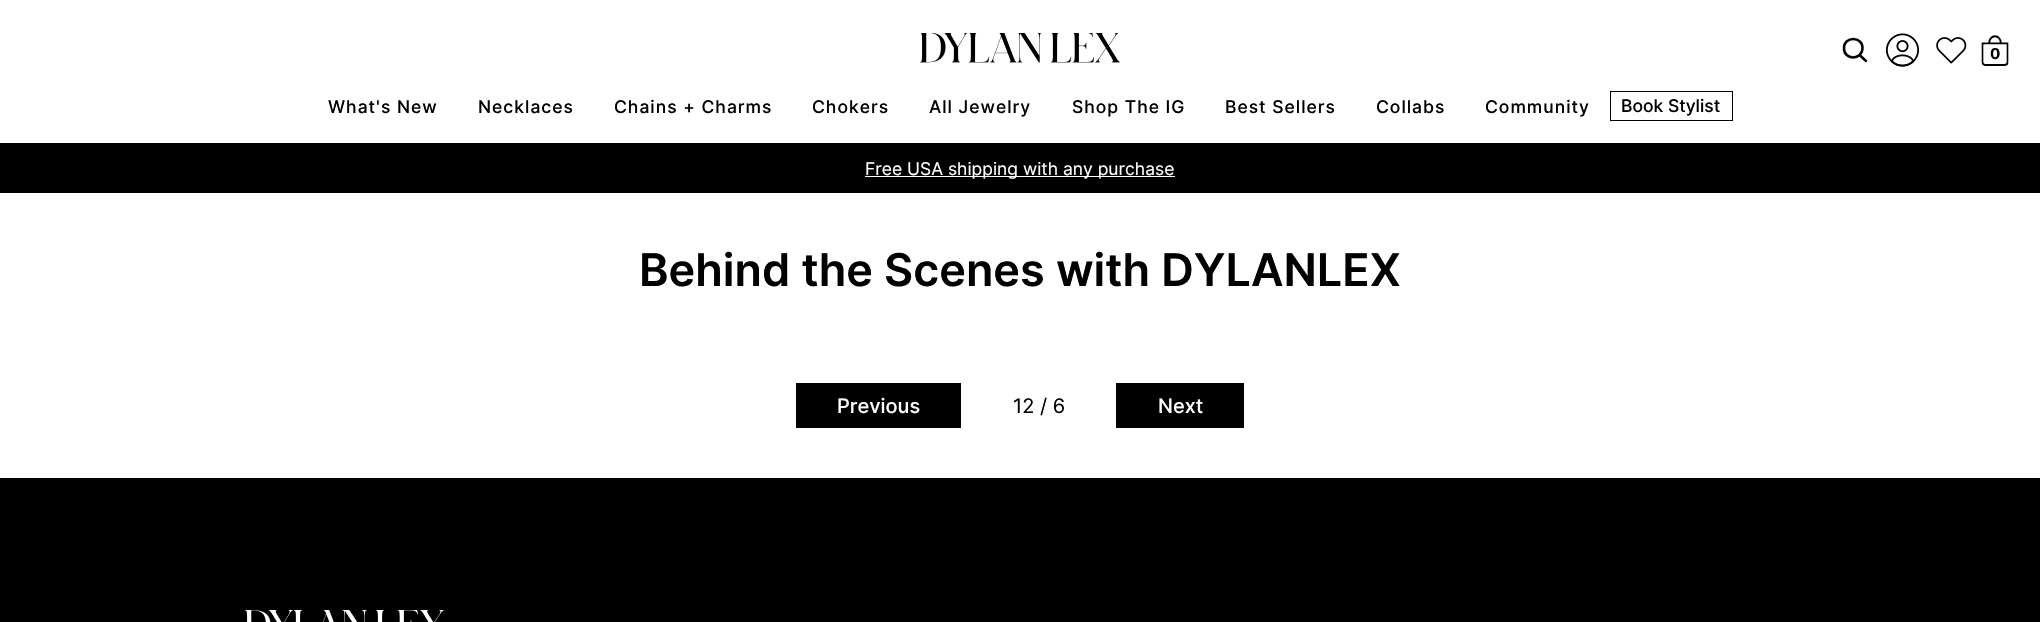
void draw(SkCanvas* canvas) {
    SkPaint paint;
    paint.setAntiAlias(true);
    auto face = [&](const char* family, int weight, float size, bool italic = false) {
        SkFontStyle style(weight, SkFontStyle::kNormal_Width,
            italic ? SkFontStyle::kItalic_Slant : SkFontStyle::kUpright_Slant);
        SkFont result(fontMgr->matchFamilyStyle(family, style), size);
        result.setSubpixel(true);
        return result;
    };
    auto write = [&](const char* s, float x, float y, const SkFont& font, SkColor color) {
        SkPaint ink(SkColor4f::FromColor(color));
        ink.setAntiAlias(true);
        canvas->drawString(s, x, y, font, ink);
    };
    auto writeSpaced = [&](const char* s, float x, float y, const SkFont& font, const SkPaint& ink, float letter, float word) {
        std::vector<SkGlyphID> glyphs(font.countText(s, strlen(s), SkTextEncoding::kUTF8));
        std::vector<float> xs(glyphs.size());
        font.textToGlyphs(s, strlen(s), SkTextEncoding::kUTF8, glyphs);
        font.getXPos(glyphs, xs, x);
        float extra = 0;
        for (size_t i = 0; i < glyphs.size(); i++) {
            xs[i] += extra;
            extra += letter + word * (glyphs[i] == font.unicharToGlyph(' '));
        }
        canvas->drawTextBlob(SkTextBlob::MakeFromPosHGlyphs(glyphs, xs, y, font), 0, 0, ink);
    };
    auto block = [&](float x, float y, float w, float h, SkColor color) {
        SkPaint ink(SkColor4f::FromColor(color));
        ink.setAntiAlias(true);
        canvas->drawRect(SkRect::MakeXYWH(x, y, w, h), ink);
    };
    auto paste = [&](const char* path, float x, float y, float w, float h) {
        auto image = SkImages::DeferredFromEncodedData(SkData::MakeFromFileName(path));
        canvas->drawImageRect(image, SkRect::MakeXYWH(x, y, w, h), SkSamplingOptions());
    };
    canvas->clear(SK_ColorWHITE);
    paste("pic1.png", 920, 33, 200, 30);
    paint.setStyle(SkPaint::kStroke_Style);
    paint.setStrokeWidth(2.5f);
    paint.setStrokeCap(SkPaint::kRound_Cap);
    paint.setStrokeJoin(SkPaint::kRound_Join);
    paint.setColor(SK_ColorBLACK);
    canvas->drawPath(SkPathBuilder().moveTo(1859.5f, 55).lineTo(1866, 61).moveTo(1862.5f, 48).cubicTo(1862.5f, 60.5f, 1843.5f, 60.5f, 1844, 48).cubicTo(1844, 36, 1862.5f, 36, 1862.5f, 48).close().detach(), paint);
    paste("pic2.png", 1886, 33, 33, 34);
    paste("pic3.png", 1936, 37, 31, 27);
    paste("pic4.png", 1981, 35, 28, 31);
    auto kFont1 = face("Inter", 700, 15);
    write("0", 1990, 59, kFont1, SK_ColorBLACK);
    auto kFont2 = face("Inter", 500, 17.5f);
    paint.setStyle(SkPaint::kFill_Style);
    writeSpaced("What's New", 328, 113, kFont2, paint, 1, 0);
    writeSpaced("Necklaces", 478, 113, kFont2, paint, 1, 0);
    writeSpaced("Chains + Charms", 614, 113, kFont2, paint, 1, 0);
    writeSpaced("Chokers", 812, 113, kFont2, paint, 1, 0);
    writeSpaced("All Jewelry", 929, 113, kFont2, paint, 1, 0);
    writeSpaced("Shop The IG", 1072, 113, kFont2, paint, 1, 0);
    writeSpaced("Best Sellers", 1225, 113, kFont2, paint, 1, 0);
    writeSpaced("Collabs", 1376, 113, kFont2, paint, 1, 0);
    writeSpaced("Community", 1485, 113, kFont2, paint, 1, 0);
    paint.setStyle(SkPaint::kStroke_Style);
    paint.setStrokeWidth(1);
    paint.setStrokeCap(SkPaint::kButt_Cap);
    paint.setStrokeJoin(SkPaint::kMiter_Join);
    canvas->drawRect(SkRect::MakeXYWH(1610.5f, 91.5f, 122, 29), paint);
    write("Book Stylist", 1621, 112, kFont2, SK_ColorBLACK);
    block(0, 143, 2040, 50, SK_ColorBLACK);
    block(865, 176, 310, 1, SK_ColorWHITE);
    auto kFont3 = face("Inter", 400, 17.5f);
    write("Free USA shipping with any purchase", 865, 175, kFont3, SK_ColorWHITE);
    auto kFont4 = face("Inter", 600, 45);
    write("Behind the Scenes with DYLANLEX", 639, 286, kFont4, SK_ColorBLACK);
    block(796, 383, 165, 45, SK_ColorBLACK);
    auto kFont5 = face("Inter", 500, 20);
    write("Previous", 837, 413, kFont5, SK_ColorWHITE);
    auto kFont6 = face("Inter", 400, 20);
    write("12 / 6", 1013, 413, kFont6, SK_ColorBLACK);
    block(1116, 383, 128, 45, SK_ColorBLACK);
    write("Next", 1158, 413, kFont5, SK_ColorWHITE);
    block(0, 478, 2040, 144, SK_ColorBLACK);
    paste("pic5.png", 245, 610, 199, 12);
}
